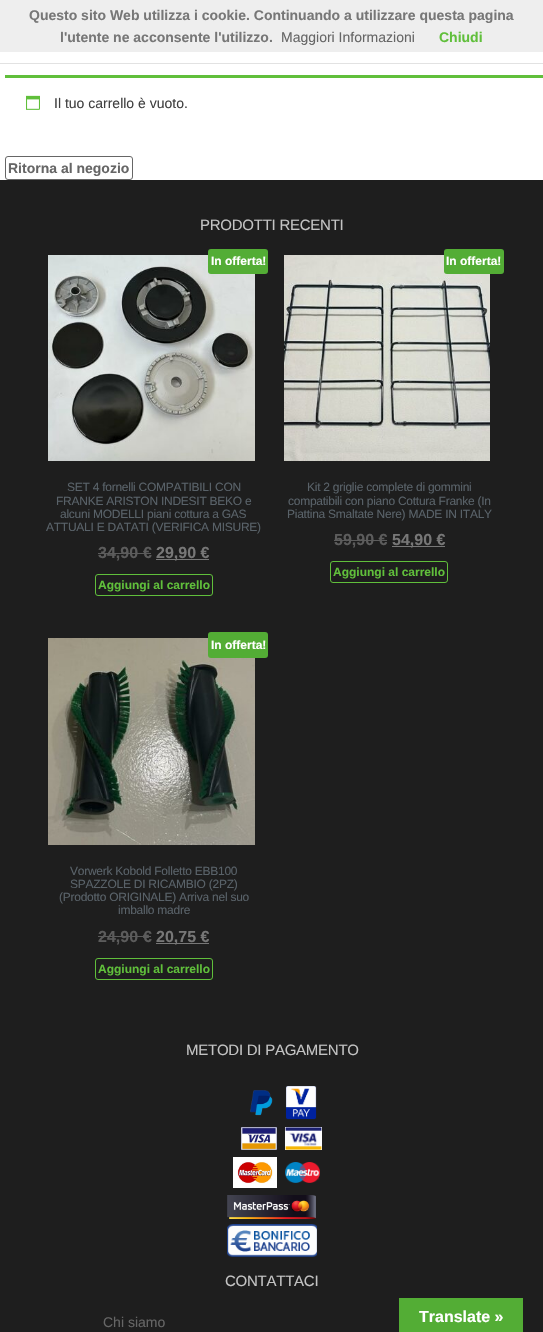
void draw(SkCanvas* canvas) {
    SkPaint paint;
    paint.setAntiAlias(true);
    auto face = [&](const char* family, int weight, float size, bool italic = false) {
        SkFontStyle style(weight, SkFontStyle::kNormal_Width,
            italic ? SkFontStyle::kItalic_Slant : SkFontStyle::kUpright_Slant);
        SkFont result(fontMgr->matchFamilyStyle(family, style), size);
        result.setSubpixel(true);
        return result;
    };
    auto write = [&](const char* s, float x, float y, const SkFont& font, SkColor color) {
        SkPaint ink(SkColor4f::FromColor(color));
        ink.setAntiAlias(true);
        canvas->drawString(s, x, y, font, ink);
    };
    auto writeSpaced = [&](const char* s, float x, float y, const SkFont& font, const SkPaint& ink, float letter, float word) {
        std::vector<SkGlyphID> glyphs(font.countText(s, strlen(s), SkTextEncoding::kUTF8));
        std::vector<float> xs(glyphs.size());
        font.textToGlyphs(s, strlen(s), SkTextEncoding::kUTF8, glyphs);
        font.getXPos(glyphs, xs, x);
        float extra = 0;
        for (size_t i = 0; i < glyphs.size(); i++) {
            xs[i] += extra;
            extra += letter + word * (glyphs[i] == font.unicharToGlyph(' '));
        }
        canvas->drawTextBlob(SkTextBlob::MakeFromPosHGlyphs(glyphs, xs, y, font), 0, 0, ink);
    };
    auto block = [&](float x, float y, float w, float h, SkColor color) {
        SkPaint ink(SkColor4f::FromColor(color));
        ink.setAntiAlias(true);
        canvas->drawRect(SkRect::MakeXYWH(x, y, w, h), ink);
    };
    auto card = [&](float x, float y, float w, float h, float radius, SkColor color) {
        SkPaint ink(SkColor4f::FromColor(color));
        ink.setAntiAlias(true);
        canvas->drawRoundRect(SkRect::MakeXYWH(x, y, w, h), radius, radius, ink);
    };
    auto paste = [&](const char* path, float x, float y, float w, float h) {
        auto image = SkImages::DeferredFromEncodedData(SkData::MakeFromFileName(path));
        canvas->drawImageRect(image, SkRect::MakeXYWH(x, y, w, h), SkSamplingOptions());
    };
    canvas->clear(SK_ColorWHITE);
    block(0, 0, 543, 52, SkColorSetRGB(238, 238, 238));
    auto kFont1 = face("Liberation Sans", 700, 14);
    write("Questo sito Web utilizza i cookie. Continuando a utilizzare questa pagina", 29, 20, kFont1, SkColorSetRGB(119, 119, 119));
    write("l'utente ne acconsente l'utilizzo.", 60, 42, kFont1, SkColorSetRGB(119, 119, 119));
    auto kFont2 = face("Liberation Sans", 400, 14);
    write("Maggiori Informazioni", 281, 42, kFont2, SkColorSetRGB(102, 102, 102));
    write("Chiudi", 439, 42, kFont1, SkColorSetRGB(96, 191, 59));
    block(0, 63, 543, 1, SkColorSetRGB(226, 226, 226));
    block(5, 75, 538, 3, SkColorSetRGB(96, 191, 59));
    paste("pic1.png", 26, 95, 14, 15);
    write("Il tuo carrello è vuoto.", 54, 108, kFont2, SkColorSetRGB(64, 64, 64));
    paint.setStyle(SkPaint::kStroke_Style);
    paint.setStrokeWidth(1);
    paint.setColor(SkColorSetRGB(102, 102, 102));
    canvas->drawRoundRect(SkRect::MakeXYWH(5.5f, 156.5f, 127, 23), 2.5f, 2.5f, paint);
    write("Ritorna al negozio", 8, 173, kFont1, SkColorSetRGB(102, 102, 102));
    block(0, 180, 543, 1152, SkColorSetRGB(30, 30, 30));
    auto kFont3 = face("Liberation Sans", 400, 15);
    paint.setStyle(SkPaint::kFill_Style);
    paint.setColor(SkColorSetRGB(195, 195, 195));
    writeSpaced("PRODOTTI RECENTI", 200, 230, kFont3, paint, -0.25f, 0);
    paste("pic2.png", 48, 255, 207, 206);
    card(208, 249, 60, 25, 3, SkColorSetRGB(83, 173, 53));
    auto kFont4 = face("Liberation Sans", 700, 12);
    write("In offerta!", 211, 265, kFont4, SK_ColorWHITE);
    auto kFont5 = face("Liberation Sans", 400, 12);
    paint.setColor(SkColorSetRGB(89, 98, 105));
    writeSpaced("SET 4 fornelli COMPATIBILI CON", 67, 491, kFont5, paint, -0.25f, 0);
    writeSpaced("FRANKE ARISTON INDESIT BEKO e", 56, 505, kFont5, paint, -0.25f, 0);
    writeSpaced("alcuni MODELLI piani cottura a GAS", 60, 518, kFont5, paint, -0.25f, 0);
    writeSpaced("ATTUALI E DATATI (VERIFICA MISURE)", 46, 531, kFont5, paint, -0.25f, 0);
    auto kFont6 = face("Liberation Sans", 700, 16);
    write("34,90", 98, 558, kFont6, SkColorSetRGB(92, 92, 92));
    block(98, 553, 45, 1, SkColorSetRGB(92, 92, 92));
    write("€", 143, 558, kFont6, SkColorSetRGB(92, 92, 92));
    block(143, 553, 8, 1, SkColorSetRGB(92, 92, 92));
    block(156, 559, 53, 1, SkColorSetRGB(119, 119, 119));
    write("29,90 €", 156, 558, kFont6, SkColorSetRGB(119, 119, 119));
    paint.setStyle(SkPaint::kStroke_Style);
    paint.setColor(SkColorSetRGB(96, 191, 59));
    canvas->drawRoundRect(SkRect::MakeXYWH(95.5f, 574.5f, 117, 21), 2.5f, 2.5f, paint);
    write("Aggiungi al carrello", 98, 589, kFont4, SkColorSetRGB(96, 191, 59));
    paste("pic3.png", 284, 255, 206, 206);
    card(444, 249, 60, 25, 3, SkColorSetRGB(83, 173, 53));
    write("In offerta!", 446, 265, kFont4, SK_ColorWHITE);
    paint.setStyle(SkPaint::kFill_Style);
    paint.setColor(SkColorSetRGB(89, 98, 105));
    writeSpaced("Kit 2 griglie complete di gommini", 307, 491, kFont5, paint, -0.25f, 0);
    writeSpaced("compatibili con piano Cottura Franke (In", 288, 505, kFont5, paint, -0.25f, 0);
    writeSpaced("Piattina Smaltate Nere) MADE IN ITALY", 287, 518, kFont5, paint, -0.25f, 0);
    write("59,90 €", 334, 545, kFont6, SkColorSetRGB(92, 92, 92));
    block(334, 540, 53, 1, SkColorSetRGB(92, 92, 92));
    block(392, 546, 53, 1, SkColorSetRGB(119, 119, 119));
    write("54,90 €", 392, 545, kFont6, SkColorSetRGB(119, 119, 119));
    paint.setStyle(SkPaint::kStroke_Style);
    paint.setColor(SkColorSetRGB(96, 191, 59));
    canvas->drawRoundRect(SkRect::MakeXYWH(330.5f, 561.5f, 117, 21), 2.5f, 2.5f, paint);
    write("Aggiungi al carrello", 333, 576, kFont4, SkColorSetRGB(96, 191, 59));
    paste("pic4.png", 48, 638, 207, 207);
    card(208, 632, 60, 26, 3, SkColorSetRGB(83, 173, 53));
    write("In offerta!", 211, 649, kFont4, SK_ColorWHITE);
    paint.setStyle(SkPaint::kFill_Style);
    paint.setColor(SkColorSetRGB(89, 98, 105));
    writeSpaced("Vorwerk Kobold Folletto EBB100", 70, 875, kFont5, paint, -0.25f, 0);
    writeSpaced("SPAZZOLE DI RICAMBIO (2PZ)", 70, 888, kFont5, paint, -0.25f, 0);
    writeSpaced("(Prodotto ORIGINALE) Arriva nel suo", 59, 901, kFont5, paint, -0.25f, 0);
    writeSpaced("imballo madre", 118, 914, kFont5, paint, -0.25f, 0);
    write("24,90", 98, 942, kFont6, SkColorSetRGB(92, 92, 92));
    block(98, 936, 45, 1, SkColorSetRGB(92, 92, 92));
    write("€", 143, 942, kFont6, SkColorSetRGB(92, 92, 92));
    block(143, 936, 8, 1, SkColorSetRGB(92, 92, 92));
    block(156, 943, 53, 1, SkColorSetRGB(119, 119, 119));
    write("20,75 €", 156, 942, kFont6, SkColorSetRGB(119, 119, 119));
    paint.setStyle(SkPaint::kStroke_Style);
    paint.setColor(SkColorSetRGB(96, 191, 59));
    canvas->drawRoundRect(SkRect::MakeXYWH(95.5f, 958.5f, 117, 21), 2.5f, 2.5f, paint);
    write("Aggiungi al carrello", 98, 973, kFont4, SkColorSetRGB(96, 191, 59));
    paint.setStyle(SkPaint::kFill_Style);
    paint.setColor(SkColorSetRGB(195, 195, 195));
    writeSpaced("METODI DI PAGAMENTO", 186, 1055, kFont3, paint, -0.25f, 0);
    paste("pic5.png", 250, 1090, 23, 26);
    paste("pic6.png", 286, 1086, 31, 34);
    paste("pic7.png", 241, 1127, 36, 23);
    paste("pic8.png", 285, 1127, 37, 23);
    paste("pic9.png", 233, 1157, 44, 31);
    paste("pic10.png", 285, 1162, 35, 21);
    paste("pic11.png", 227, 1195, 89, 24);
    paste("pic12.png", 227, 1224, 90, 33);
    writeSpaced("CONTATTACI", 225, 1286, kFont3, paint, -0.25f, 0);
    write("Chi siamo", 103, 1327, kFont2, SkColorSetRGB(102, 102, 102));
    block(399, 1298, 124, 34, SkColorSetRGB(83, 173, 53));
    write("Translate »", 419, 1322, kFont6, SK_ColorWHITE);
}
